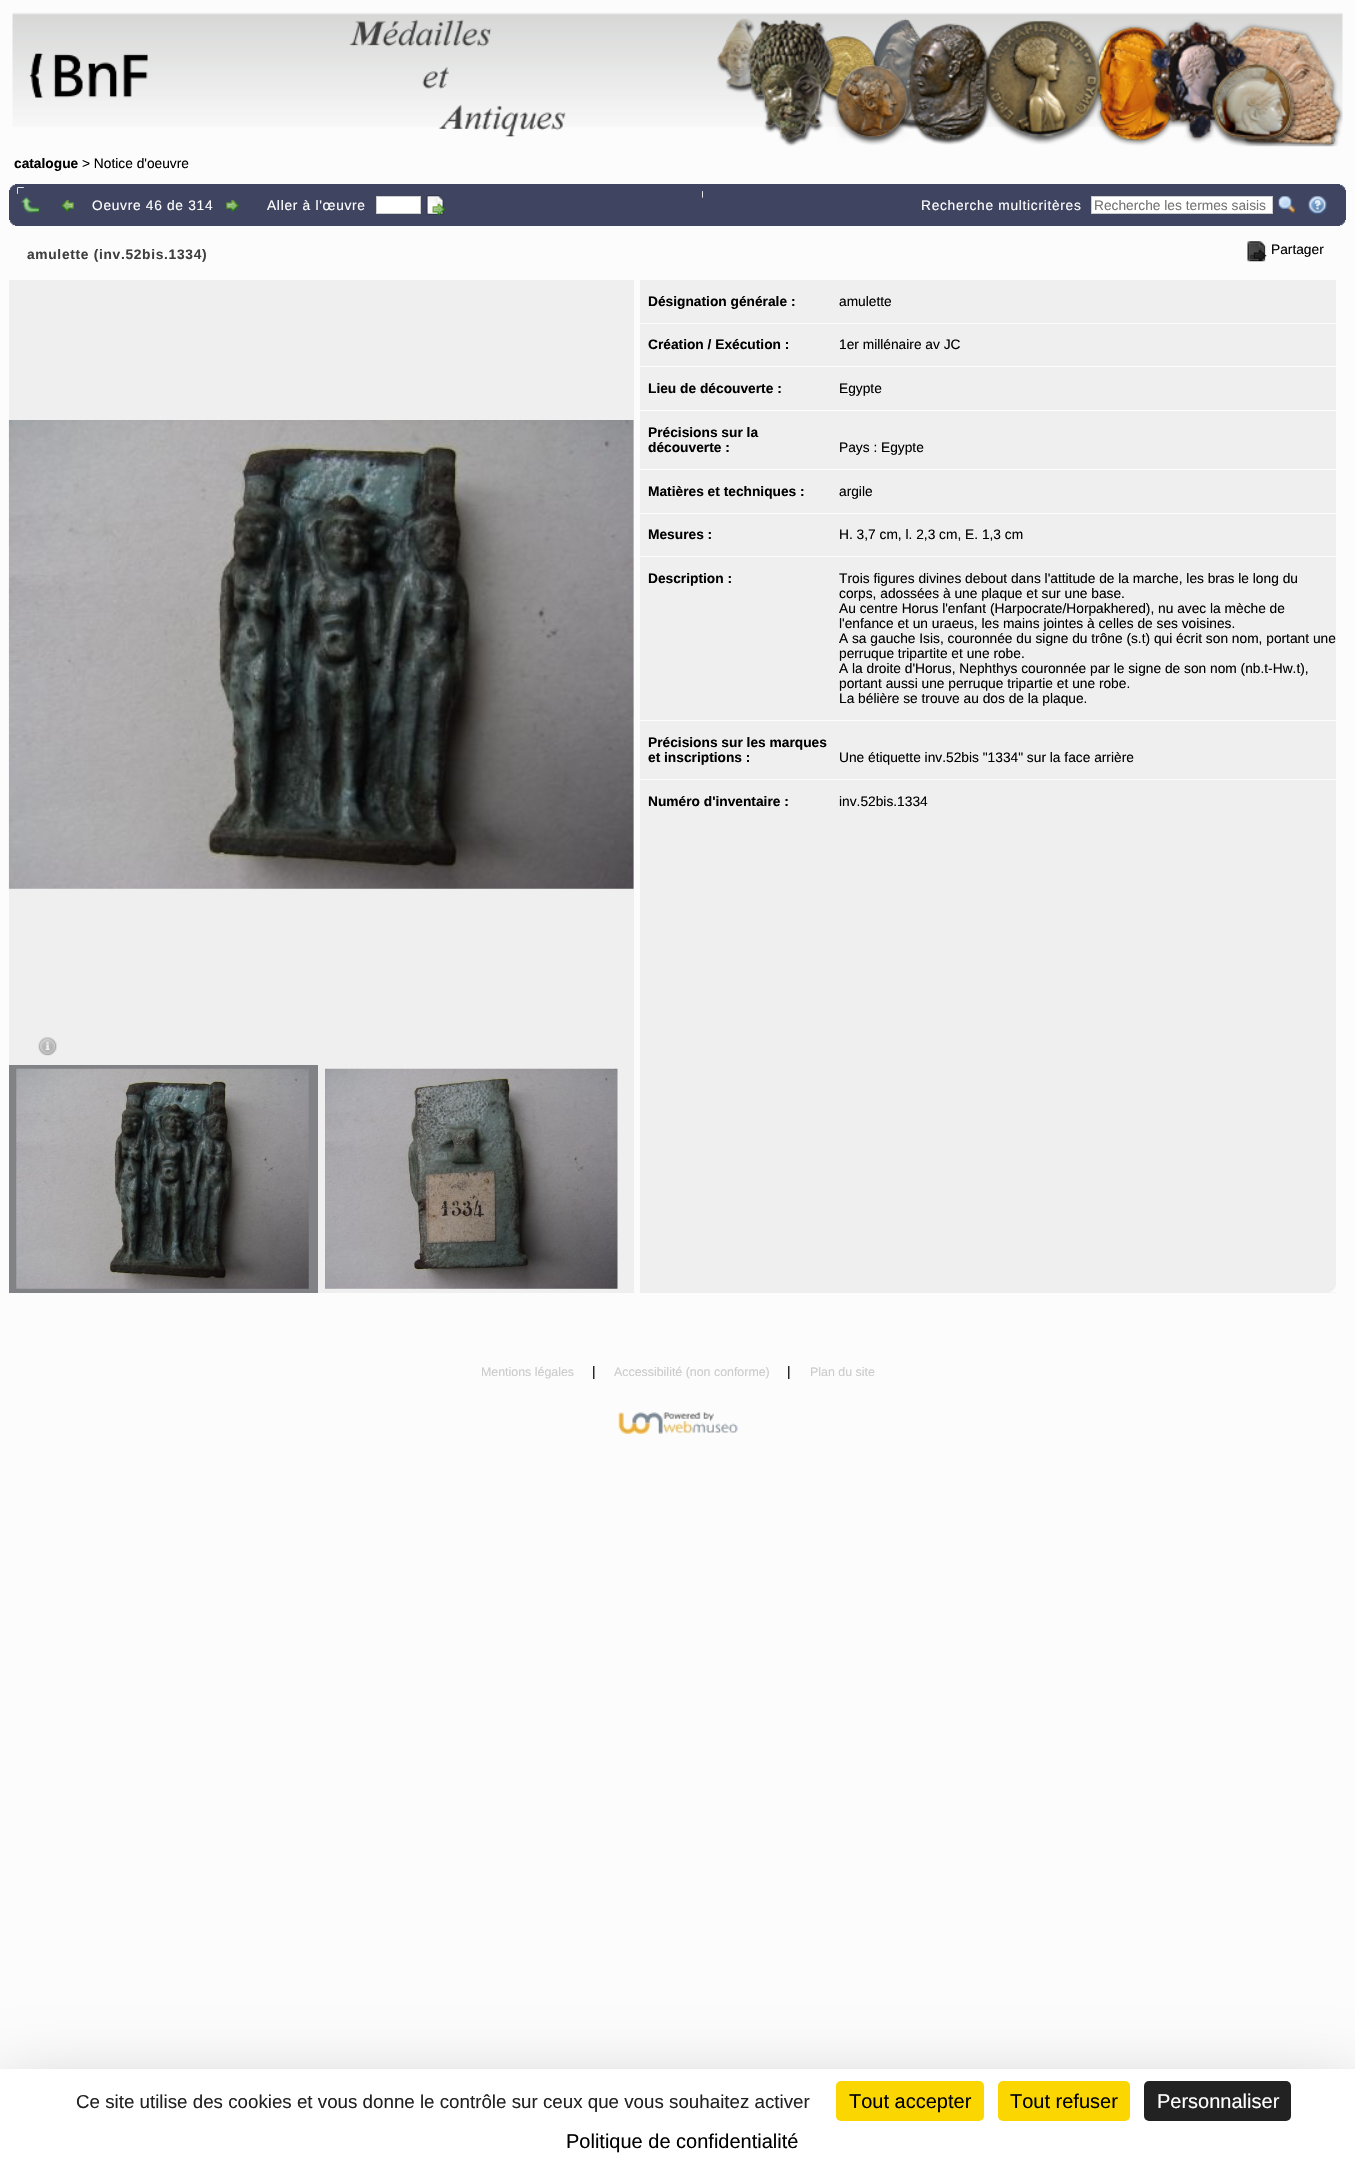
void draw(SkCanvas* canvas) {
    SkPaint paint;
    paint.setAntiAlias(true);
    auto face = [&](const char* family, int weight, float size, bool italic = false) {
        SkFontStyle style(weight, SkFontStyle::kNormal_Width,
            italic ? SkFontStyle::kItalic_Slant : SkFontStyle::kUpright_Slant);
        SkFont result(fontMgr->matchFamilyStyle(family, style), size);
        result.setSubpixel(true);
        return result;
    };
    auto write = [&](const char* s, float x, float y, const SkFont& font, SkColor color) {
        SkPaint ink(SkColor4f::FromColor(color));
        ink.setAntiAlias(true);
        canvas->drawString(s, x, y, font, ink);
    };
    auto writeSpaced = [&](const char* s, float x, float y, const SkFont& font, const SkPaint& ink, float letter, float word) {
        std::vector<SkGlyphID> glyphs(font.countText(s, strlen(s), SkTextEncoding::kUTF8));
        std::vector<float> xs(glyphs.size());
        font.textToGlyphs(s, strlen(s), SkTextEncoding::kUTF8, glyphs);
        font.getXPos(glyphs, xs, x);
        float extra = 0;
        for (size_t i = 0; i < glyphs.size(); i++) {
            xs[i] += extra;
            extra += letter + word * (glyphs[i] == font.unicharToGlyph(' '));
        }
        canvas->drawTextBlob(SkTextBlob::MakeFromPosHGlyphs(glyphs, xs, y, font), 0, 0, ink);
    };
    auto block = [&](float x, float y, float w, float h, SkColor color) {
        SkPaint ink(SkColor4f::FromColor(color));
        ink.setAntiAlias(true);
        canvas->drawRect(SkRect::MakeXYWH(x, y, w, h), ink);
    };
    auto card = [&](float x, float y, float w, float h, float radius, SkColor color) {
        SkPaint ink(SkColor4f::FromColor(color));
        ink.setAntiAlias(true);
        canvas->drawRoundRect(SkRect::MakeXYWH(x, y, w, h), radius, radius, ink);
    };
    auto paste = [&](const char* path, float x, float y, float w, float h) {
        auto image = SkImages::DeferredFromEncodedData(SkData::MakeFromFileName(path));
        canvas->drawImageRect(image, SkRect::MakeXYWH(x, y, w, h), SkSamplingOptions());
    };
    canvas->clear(SkColorSetRGB(252, 252, 252));
    paste("pic1.png", 12, 12, 1331, 115);
    paste("pic2.png", 29, 19, 537, 118);
    paste("pic3.png", 717, 18, 626, 129);
    auto kFont1 = face("Liberation Sans", 700, 13.75f);
    write("catalogue", 14, 168, kFont1, SK_ColorBLACK);
    auto kFont2 = face("Liberation Sans", 400, 13.75f);
    write("> Notice d'oeuvre", 82, 168, kFont2, SK_ColorBLACK);
    block(9, 184, 1337, 42, SkColorSetRGB(63, 68, 97));
    paste("pic4.png", 9, 184, 6, 6);
    paste("pic5.png", 1340, 184, 6, 6);
    paste("pic6.png", 9, 220, 6, 6);
    paste("pic7.png", 17, 187, 7, 7);
    paste("pic8.png", 17, 187, 7, 7);
    paste("pic9.png", 17, 187, 7, 7);
    block(18, 188, 6, 6, SkColorSetRGB(63, 68, 97));
    paste("pic10.png", 21, 197, 19, 16);
    paste("pic11.png", 61, 199, 13, 13);
    paint.setColor(SK_ColorWHITE);
    writeSpaced("Oeuvre 46 de 314", 92, 210, kFont2, paint, 0.7f, 0);
    paste("pic12.png", 226, 199, 13, 13);
    writeSpaced("Aller à l'œuvre", 267, 210, kFont2, paint, 0.7f, 0);
    canvas->drawRect(SkRect::MakeXYWH(376.5f, 196.5f, 44, 17), paint);
    paint.setStyle(SkPaint::kStroke_Style);
    paint.setStrokeWidth(1);
    paint.setColor(SkColorSetRGB(204, 204, 204));
    canvas->drawRect(SkRect::MakeXYWH(376.5f, 196.5f, 44, 17), paint);
    paste("pic13.png", 426, 195, 19, 20);
    paste("pic14.png", 1340, 220, 6, 6);
    paste("pic15.png", 702, 191, 1, 7);
    paste("pic16.png", 702, 191, 1, 7);
    paste("pic17.png", 702, 191, 1, 7);
    paint.setStyle(SkPaint::kFill_Style);
    paint.setColor(SK_ColorWHITE);
    writeSpaced("Recherche multicritères", 921, 210, kFont2, paint, 0.7f, 0);
    canvas->drawRect(SkRect::MakeXYWH(1091.5f, 196.5f, 181, 17), paint);
    paint.setStyle(SkPaint::kStroke_Style);
    paint.setColor(SkColorSetRGB(204, 204, 204));
    canvas->drawRect(SkRect::MakeXYWH(1091.5f, 196.5f, 181, 17), paint);
    write("Recherche les termes saisis", 1094, 210, kFont2, SkColorSetRGB(117, 117, 117));
    paste("pic18.png", 1278, 196, 18, 18);
    paste("pic19.png", 1308, 196, 19, 18);
    paint.setStyle(SkPaint::kFill_Style);
    paint.setColor(SkColorSetRGB(63, 63, 63));
    writeSpaced("amulette (inv.52bis.1334)", 27, 259, kFont1, paint, 0.7f, 0);
    paste("pic20.png", 1247, 241, 20, 21);
    write("Partager", 1271, 254, kFont2, SK_ColorBLACK);
    block(9, 280, 625, 1013, SkColorSetRGB(239, 239, 239));
    paste("pic21.png", 38, 1037, 19, 19);
    block(9, 1065, 309, 228, SkColorSetRGB(129, 130, 133));
    paste("pic22.png", 16, 1068, 293, 221);
    paste("pic23.png", 325, 1068, 293, 221);
    paste("pic24.png", 8, 420, 626, 469);
    block(640, 280, 696, 1013, SkColorSetRGB(239, 239, 239));
    paste("pic25.png", 1330, 1286, 6, 7);
    write("Désignation générale :", 648, 306, kFont1, SK_ColorBLACK);
    write("amulette", 839, 306, kFont2, SK_ColorBLACK);
    block(640, 323, 696, 1, SkColorSetRGB(252, 252, 252));
    write("Création / Exécution :", 648, 349, kFont1, SK_ColorBLACK);
    write("1er millénaire av JC", 839, 349, kFont2, SK_ColorBLACK);
    block(640, 366, 696, 1, SkColorSetRGB(252, 252, 252));
    write("Lieu de découverte :", 648, 393, kFont1, SK_ColorBLACK);
    write("Egypte", 839, 393, kFont2, SK_ColorBLACK);
    block(640, 410, 696, 1, SkColorSetRGB(252, 252, 252));
    write("Précisions sur la", 648, 437, kFont1, SK_ColorBLACK);
    write("découverte :", 648, 452, kFont1, SK_ColorBLACK);
    write("Pays : Egypte", 839, 452, kFont2, SK_ColorBLACK);
    block(640, 469, 696, 1, SkColorSetRGB(252, 252, 252));
    write("Matières et techniques :", 648, 496, kFont1, SK_ColorBLACK);
    write("argile", 839, 496, kFont2, SK_ColorBLACK);
    block(640, 513, 696, 1, SkColorSetRGB(252, 252, 252));
    write("Mesures :", 648, 539, kFont1, SK_ColorBLACK);
    write("H. 3,7 cm, l. 2,3 cm, E. 1,3 cm", 839, 539, kFont2, SK_ColorBLACK);
    block(640, 556, 696, 1, SkColorSetRGB(252, 252, 252));
    write("Description :", 648, 583, kFont1, SK_ColorBLACK);
    write("Trois figures divines debout dans l'attitude de la marche, les bras le long du", 839, 583, kFont2, SK_ColorBLACK);
    write("corps, adossées à une plaque et sur une base.", 839, 598, kFont2, SK_ColorBLACK);
    write("Au centre Horus l'enfant (Harpocrate/Horpakhered), nu avec la mèche de", 839, 613, kFont2, SK_ColorBLACK);
    write("l'enfance et un uraeus, les mains jointes à celles de ses voisines.", 839, 628, kFont2, SK_ColorBLACK);
    write("A sa gauche Isis, couronnée du signe du trône (s.t) qui écrit son nom, portant une", 839, 643, kFont2, SK_ColorBLACK);
    write("perruque tripartite et une robe.", 839, 658, kFont2, SK_ColorBLACK);
    write("A la droite d'Horus, Nephthys couronnée par le signe de son nom (nb.t-Hw.t),", 839, 673, kFont2, SK_ColorBLACK);
    write("portant aussi une perruque tripartie et une robe.", 839, 688, kFont2, SK_ColorBLACK);
    write("La bélière se trouve au dos de la plaque.", 839, 703, kFont2, SK_ColorBLACK);
    block(640, 720, 696, 1, SkColorSetRGB(252, 252, 252));
    write("Précisions sur les marques", 648, 747, kFont1, SK_ColorBLACK);
    write("et inscriptions :", 648, 762, kFont1, SK_ColorBLACK);
    write("Une étiquette inv.52bis \"1334\" sur la face arrière", 839, 762, kFont2, SK_ColorBLACK);
    block(640, 779, 696, 1, SkColorSetRGB(252, 252, 252));
    write("Numéro d'inventaire :", 648, 806, kFont1, SK_ColorBLACK);
    write("inv.52bis.1334", 839, 806, kFont2, SK_ColorBLACK);
    auto kFont3 = face("Liberation Sans", 400, 12.4f);
    write("Mentions légales", 481, 1376, kFont3, SkColorSetRGB(204, 204, 204));
    write("|", 592, 1376, kFont2, SK_ColorBLACK);
    write("Accessibilité (non conforme)", 614, 1376, kFont3, SkColorSetRGB(204, 204, 204));
    write("|", 787, 1376, kFont2, SK_ColorBLACK);
    write("Plan du site", 810, 1376, kFont3, SkColorSetRGB(204, 204, 204));
    paste("pic26.png", 618, 1412, 120, 22);
    paint.setColor(SkColorSetARGB(64, 0, 0, 0));
    paint.setMaskFilter(SkMaskFilter::MakeBlur(kNormal_SkBlurStyle, 37.5f));
    canvas->drawRect(SkRect::MakeXYWH(0, 2094, 1355, 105), paint);
    paint.setMaskFilter(nullptr);
    block(0, 2069, 1355, 104, SK_ColorWHITE);
    auto kFont4 = face("Liberation Sans", 400, 18.75f);
    write("Ce site utilise des cookies et vous donne le contrôle sur ceux que vous souhaitez activer", 76, 2108, kFont4, SkColorSetRGB(34, 34, 34));
    card(836, 2081, 148, 40, 5, SkColorSetRGB(251, 214, 0));
    auto kFont5 = face("Liberation Sans", 400, 20);
    write("Tout accepter", 849, 2108, kFont5, SK_ColorBLACK);
    card(998, 2081, 132, 40, 5, SkColorSetRGB(251, 214, 0));
    write("Tout refuser", 1010, 2108, kFont5, SK_ColorBLACK);
    card(1144, 2081, 147, 40, 5, SkColorSetRGB(34, 34, 34));
    write("Personnaliser", 1157, 2108, kFont5, SK_ColorWHITE);
    write("Politique de confidentialité", 566, 2148, kFont5, SK_ColorBLACK);
}
